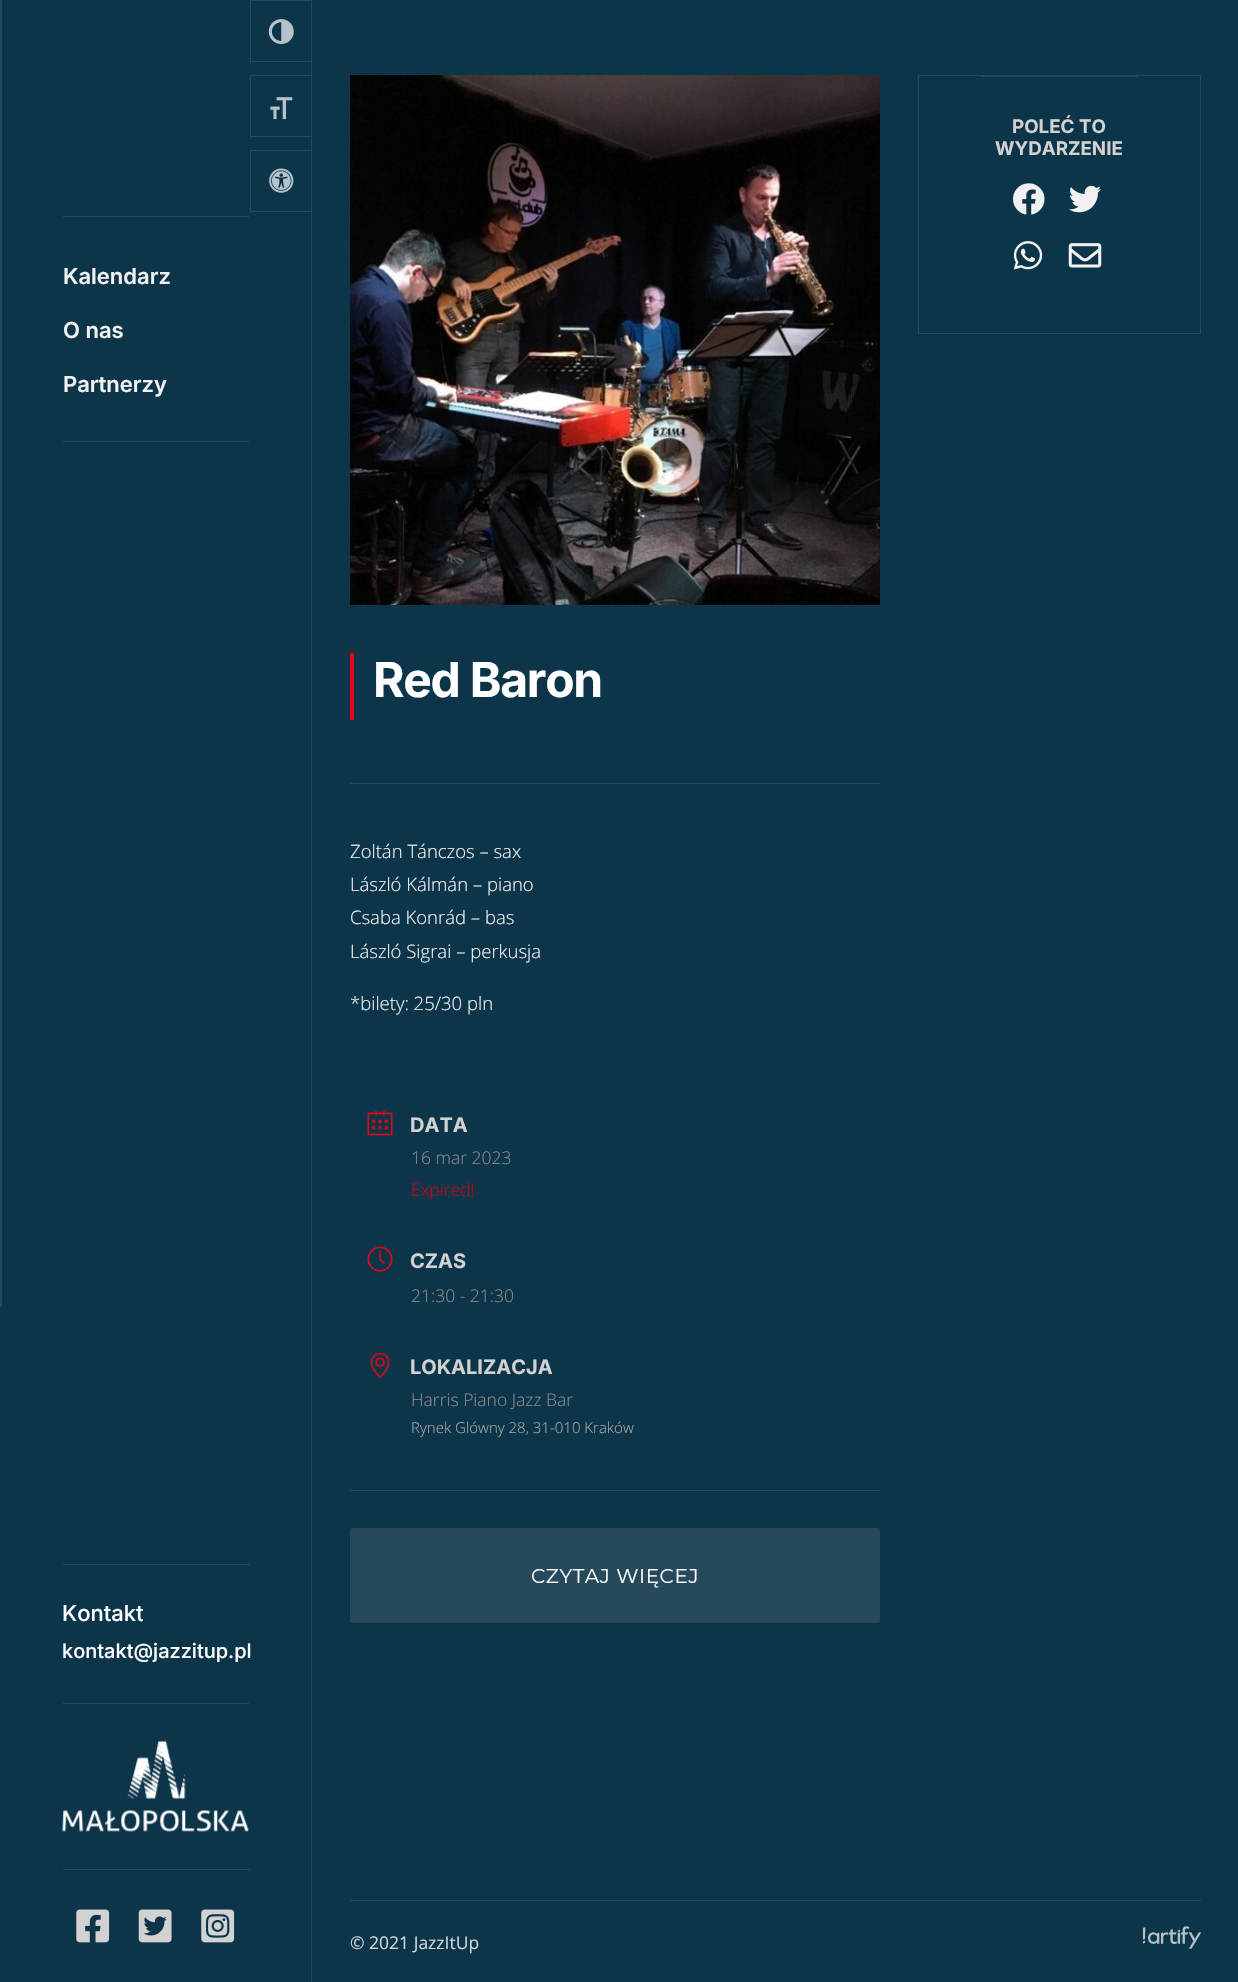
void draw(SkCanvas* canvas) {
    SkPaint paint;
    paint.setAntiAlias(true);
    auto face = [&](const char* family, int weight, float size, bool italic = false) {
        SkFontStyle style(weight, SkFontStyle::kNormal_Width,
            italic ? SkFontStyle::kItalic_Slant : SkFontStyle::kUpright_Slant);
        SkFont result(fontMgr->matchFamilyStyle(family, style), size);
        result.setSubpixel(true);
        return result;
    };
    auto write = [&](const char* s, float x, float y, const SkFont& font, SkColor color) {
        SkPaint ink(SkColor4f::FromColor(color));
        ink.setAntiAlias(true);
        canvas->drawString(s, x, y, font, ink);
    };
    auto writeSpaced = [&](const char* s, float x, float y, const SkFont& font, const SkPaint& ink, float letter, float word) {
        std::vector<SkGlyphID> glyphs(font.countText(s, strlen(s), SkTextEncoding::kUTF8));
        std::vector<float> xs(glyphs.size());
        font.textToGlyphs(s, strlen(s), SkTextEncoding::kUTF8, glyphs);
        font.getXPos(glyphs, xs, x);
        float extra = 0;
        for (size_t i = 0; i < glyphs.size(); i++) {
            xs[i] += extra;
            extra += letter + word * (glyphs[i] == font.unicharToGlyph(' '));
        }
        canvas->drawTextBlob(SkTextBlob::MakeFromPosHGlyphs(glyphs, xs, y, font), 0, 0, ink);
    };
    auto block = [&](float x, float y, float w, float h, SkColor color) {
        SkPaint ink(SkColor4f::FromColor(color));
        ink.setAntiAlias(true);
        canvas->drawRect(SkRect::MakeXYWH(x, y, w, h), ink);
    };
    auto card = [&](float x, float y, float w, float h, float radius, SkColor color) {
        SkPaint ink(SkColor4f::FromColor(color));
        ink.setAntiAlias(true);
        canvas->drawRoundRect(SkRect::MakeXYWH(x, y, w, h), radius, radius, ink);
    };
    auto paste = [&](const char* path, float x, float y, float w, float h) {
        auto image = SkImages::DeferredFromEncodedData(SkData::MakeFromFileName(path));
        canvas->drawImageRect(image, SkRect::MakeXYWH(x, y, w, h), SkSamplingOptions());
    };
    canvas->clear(SkColorSetRGB(13, 53, 74));
    block(311, 0, 1, 1982, SkColorSetRGB(38, 74, 92));
    block(0, 0, 2, 1307, SkColorSetRGB(38, 74, 92));
    block(250, 0, 61, 1, SkColorSetRGB(38, 74, 92));
    block(250, 61, 61, 1, SkColorSetRGB(38, 74, 92));
    block(250, 0, 1, 63, SkColorSetRGB(38, 74, 92));
    paste("pic1.png", 268, 19, 26, 26);
    block(250, 75, 61, 1, SkColorSetRGB(38, 74, 92));
    block(250, 136, 61, 1, SkColorSetRGB(38, 74, 92));
    block(250, 75, 1, 63, SkColorSetRGB(38, 74, 92));
    paste("pic2.png", 270, 97, 23, 23);
    block(250, 150, 61, 1, SkColorSetRGB(38, 74, 92));
    block(250, 211, 61, 1, SkColorSetRGB(38, 74, 92));
    block(250, 150, 1, 63, SkColorSetRGB(38, 74, 92));
    paste("pic3.png", 269, 168, 25, 25);
    block(63, 216, 186, 1, SkColorSetRGB(38, 74, 92));
    block(63, 441, 186, 1, SkColorSetRGB(38, 74, 92));
    auto kFont1 = face("Inter", 600, 22);
    write("Kalendarz", 63, 284, kFont1, SkColorSetRGB(241, 241, 241));
    write("O nas", 63, 338, kFont1, SkColorSetRGB(241, 241, 241));
    write("Partnerzy", 63, 392, kFont1, SkColorSetRGB(241, 241, 241));
    block(63, 1564, 187, 1, SkColorSetRGB(38, 74, 92));
    auto kFont2 = face("Inter", 500, 22);
    write("Kontakt", 62, 1621, kFont2, SK_ColorWHITE);
    auto kFont3 = face("Inter", 500, 20);
    write("kontakt@jazzitup.pl", 62, 1658, kFont3, SK_ColorWHITE);
    block(63, 1703, 186, 1, SkColorSetRGB(38, 74, 92));
    paste("pic4.png", 62, 1741, 187, 91);
    block(63, 1869, 187, 1, SkColorSetRGB(38, 74, 92));
    paste("pic5.png", 76, 1909, 34, 34);
    paste("pic6.png", 138, 1909, 34, 34);
    paste("pic7.png", 201, 1909, 34, 34);
    paint.setStyle(SkPaint::kStroke_Style);
    paint.setStrokeWidth(1);
    paint.setColor(SkColorSetRGB(38, 74, 92));
    canvas->drawRect(SkRect::MakeXYWH(918.5f, 75.5f, 282, 258), paint);
    block(981, 76, 157, 1, SkColorSetRGB(38, 74, 92));
    auto kFont4 = face("Inter", 700, 18.75f);
    write("POLEĆ TO", 1012, 133, kFont4, SkColorSetRGB(210, 210, 210));
    write("WYDARZENIE", 995, 155, kFont4, SkColorSetRGB(210, 210, 210));
    paste("pic8.png", 1013, 183, 32, 32);
    paste("pic9.png", 1069, 185, 33, 28);
    paste("pic10.png", 1013, 241, 30, 29);
    paste("pic11.png", 1068, 243, 34, 25);
    paste("pic12.png", 350, 75, 530, 530);
    block(350, 653, 4, 67, SkColorSetRGB(227, 6, 19));
    auto kFont5 = face("Inter", 700, 48);
    paint.setStyle(SkPaint::kFill_Style);
    paint.setColor(SK_ColorWHITE);
    writeSpaced("Red Baron", 373, 697, kFont5, paint, -1.25f, 0);
    block(350, 783, 530, 1, SkColorSetRGB(38, 74, 92));
    auto kFont6 = face("Open Sans", 300, 18.5f);
    write("Zoltán Tánczos – sax", 350, 858, kFont6, SkColorSetRGB(241, 241, 241));
    write("László Kálmán – piano", 350, 891, kFont6, SkColorSetRGB(241, 241, 241));
    write("Csaba Konrád – bas", 350, 924, kFont6, SkColorSetRGB(241, 241, 241));
    write("László Sigrai – perkusja", 350, 958, kFont6, SkColorSetRGB(241, 241, 241));
    write("*bilety: 25/30 pln", 350, 1010, kFont6, SkColorSetRGB(241, 241, 241));
    paste("pic13.png", 367, 1110, 26, 26);
    auto kFont7 = face("Inter", 700, 20);
    write("DATA", 410, 1132, kFont7, SkColorSetRGB(210, 210, 210));
    auto kFont8 = face("Open Sans", 300, 17.5f);
    write("16 mar 2023", 411, 1164, kFont8, SkColorSetRGB(141, 141, 141));
    write("Expired!", 411, 1196, kFont8, SkColorSetRGB(216, 0, 12));
    paste("pic14.png", 367, 1246, 26, 26);
    write("CZAS", 410, 1268, kFont7, SkColorSetRGB(210, 210, 210));
    write("21:30 - 21:30", 411, 1302, kFont8, SkColorSetRGB(141, 141, 141));
    paste("pic15.png", 370, 1352, 20, 26);
    write("LOKALIZACJA", 410, 1374, kFont7, SkColorSetRGB(210, 210, 210));
    write("Harris Piano Jazz Bar", 411, 1406, kFont8, SkColorSetRGB(141, 141, 141));
    auto kFont9 = face("Open Sans", 300, 15);
    write("Rynek Glówny 28, 31-010 Kraków", 411, 1433, kFont9, SkColorSetRGB(169, 169, 169));
    paint.setColor(SkColorSetARGB(38, 0, 0, 0));
    paint.setMaskFilter(SkMaskFilter::MakeBlur(kNormal_SkBlurStyle, 1));
    canvas->drawRoundRect(SkRect::MakeXYWH(350, 1529, 530, 95), 2.5f, 2.5f, paint);
    paint.setMaskFilter(nullptr);
    card(350, 1528, 530, 95, 2.5f, SkColorSetRGB(38, 74, 92));
    block(350, 1490, 530, 1, SkColorSetRGB(38, 74, 92));
    auto kFont10 = face("Montserrat", 400, 20);
    paint.setColor(SK_ColorWHITE);
    writeSpaced("CZYTAJ WIĘCEJ", 531, 1583, kFont10, paint, 0.6f, 0);
    block(350, 1900, 851, 1, SkColorSetRGB(38, 74, 92));
    auto kFont11 = face("Open Sans", 400, 17.5f);
    write("© 2021 JazzItUp", 350, 1949, kFont11, SkColorSetRGB(207, 215, 219));
    paste("pic16.png", 1143, 1926, 58, 23);
}
